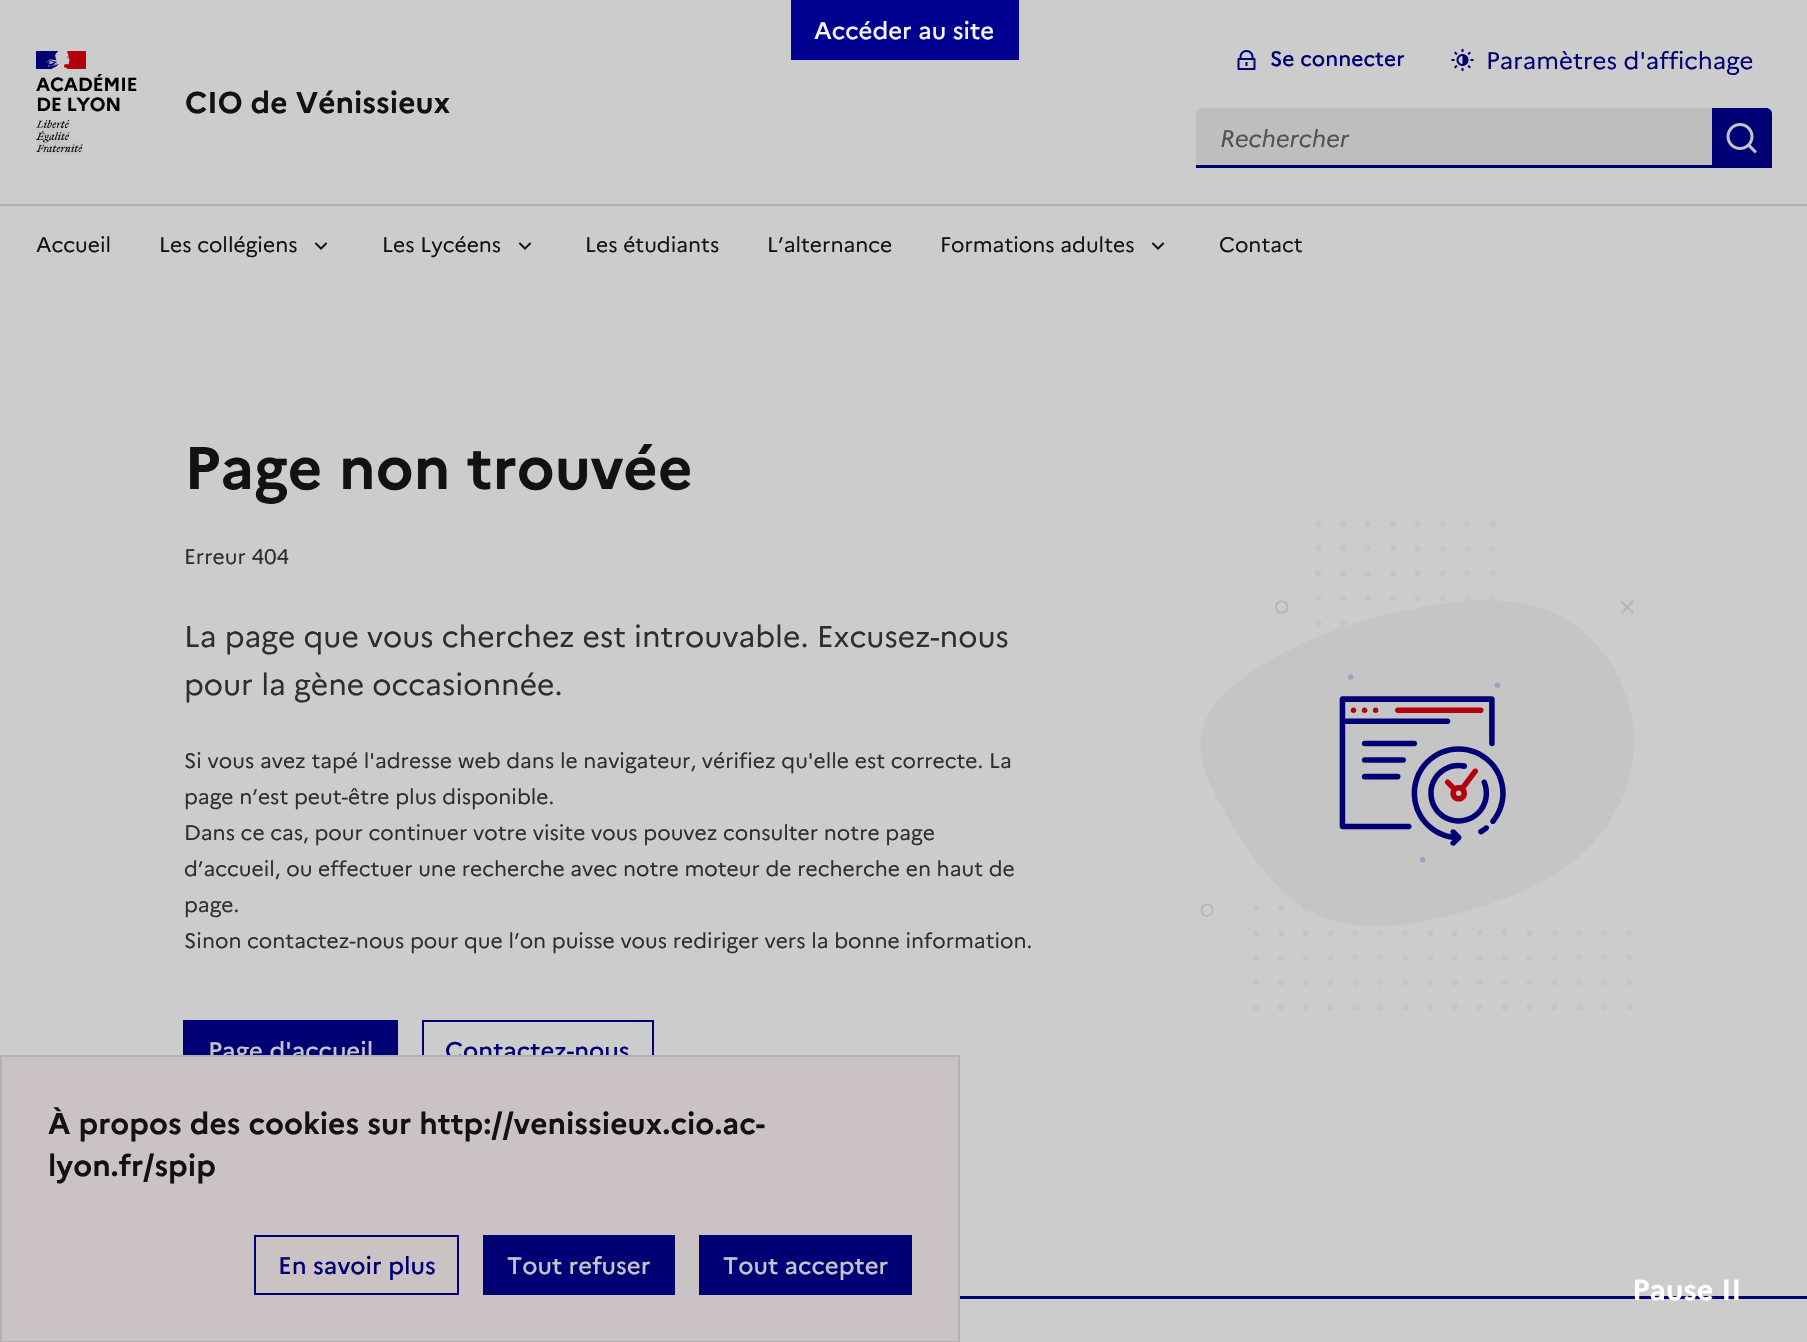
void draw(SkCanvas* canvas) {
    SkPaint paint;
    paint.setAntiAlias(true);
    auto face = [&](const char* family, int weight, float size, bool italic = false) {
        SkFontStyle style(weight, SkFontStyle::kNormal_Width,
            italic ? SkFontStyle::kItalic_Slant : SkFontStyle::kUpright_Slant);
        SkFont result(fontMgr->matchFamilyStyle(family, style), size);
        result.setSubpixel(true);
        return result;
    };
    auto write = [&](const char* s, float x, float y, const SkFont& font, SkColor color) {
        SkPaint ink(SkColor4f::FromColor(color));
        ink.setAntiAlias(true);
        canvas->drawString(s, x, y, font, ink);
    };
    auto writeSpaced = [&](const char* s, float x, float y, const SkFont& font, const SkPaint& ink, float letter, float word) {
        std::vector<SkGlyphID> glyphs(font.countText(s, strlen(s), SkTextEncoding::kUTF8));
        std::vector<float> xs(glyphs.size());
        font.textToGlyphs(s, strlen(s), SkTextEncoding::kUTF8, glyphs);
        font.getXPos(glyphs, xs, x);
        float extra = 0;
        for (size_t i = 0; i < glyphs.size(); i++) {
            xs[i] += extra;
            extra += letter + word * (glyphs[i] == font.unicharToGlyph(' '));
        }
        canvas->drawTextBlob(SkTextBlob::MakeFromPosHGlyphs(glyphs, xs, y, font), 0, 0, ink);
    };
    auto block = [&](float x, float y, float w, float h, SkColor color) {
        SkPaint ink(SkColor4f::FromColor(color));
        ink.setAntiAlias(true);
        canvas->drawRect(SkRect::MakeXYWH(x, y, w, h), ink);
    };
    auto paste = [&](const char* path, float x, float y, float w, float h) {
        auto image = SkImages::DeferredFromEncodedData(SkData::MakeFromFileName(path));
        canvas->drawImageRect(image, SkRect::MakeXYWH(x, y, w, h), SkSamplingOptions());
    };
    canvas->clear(SkColorSetRGB(204, 204, 204));
    block(791, 0, 228, 60, SkColorSetRGB(0, 0, 145));
    auto kFont1 = face("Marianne", 500, 24);
    write("Accéder au site", 814, 39, kFont1, SkColorSetRGB(245, 245, 254));
    block(960, 1296, 847, 3, SkColorSetRGB(0, 0, 116));
    auto kFont2 = face("Marianne", 700, 29);
    write("Pause II", 1632, 1300, kFont2, SK_ColorWHITE);
    block(36, 51, 23, 18, SkColorSetRGB(0, 0, 116));
    block(63, 51, 23, 18, SkColorSetRGB(180, 0, 12));
    paste("pic1.png", 46, 51, 24, 18);
    auto kFont3 = face("Marianne", 700, 19);
    paint.setColor(SK_ColorBLACK);
    writeSpaced("ACADÉMIE", 36, 91, kFont3, paint, -0.25f, 0);
    writeSpaced("DE LYON", 36, 111, kFont3, paint, -0.25f, 0);
    paste("pic2.png", 36, 120, 47, 35);
    auto kFont4 = face("Marianne", 700, 30);
    write("CIO de Vénissieux", 185, 113, kFont4, SkColorSetRGB(18, 18, 18));
    paste("pic3.png", 1237, 50, 19, 20);
    auto kFont5 = face("Marianne", 500, 21);
    write("Se connecter", 1270, 66, kFont5, SkColorSetRGB(0, 0, 116));
    paste("pic4.png", 1451, 49, 23, 22);
    auto kFont6 = face("Marianne", 400, 24);
    write("Paramètres d'affichage", 1486, 69, kFont6, SkColorSetRGB(0, 0, 116));
    paint.setColor(SkColorSetRGB(190, 190, 190));
    canvas->drawPath(SkPathBuilder().moveTo(1202, 108).lineTo(1712, 108).lineTo(1712, 168).lineTo(1196, 168).lineTo(1196, 114).cubicTo(1196, 110.5f, 1198.5f, 108, 1202, 108).close().detach(), paint);
    block(1196, 165, 516, 3, SkColorSetRGB(0, 0, 116));
    auto kFont7 = face("Marianne", 400, 24, true);
    write("Rechercher", 1220, 147, kFont7, SkColorSetRGB(82, 82, 82));
    paint.setColor(SkColorSetRGB(0, 0, 116));
    canvas->drawPath(SkPathBuilder().moveTo(1712, 108).lineTo(1766, 108).cubicTo(1769.5f, 108, 1772, 110.5f, 1772, 114).lineTo(1772, 168).lineTo(1712, 168).close().detach(), paint);
    paste("pic5.png", 1726, 123, 31, 31);
    block(0, 204, 1807, 2, SkColorSetRGB(177, 177, 177));
    auto kFont8 = face("Marianne", 400, 21);
    write("Accueil", 36, 252, kFont8, SkColorSetRGB(18, 18, 18));
    write("Les collégiens", 159, 252, kFont8, SkColorSetRGB(18, 18, 18));
    paste("pic6.png", 314, 242, 14, 8);
    write("Les Lycéens", 382, 252, kFont8, SkColorSetRGB(18, 18, 18));
    paste("pic6.png", 518, 242, 14, 8);
    write("Les étudiants", 585, 252, kFont8, SkColorSetRGB(18, 18, 18));
    write("L’alternance", 767, 252, kFont8, SkColorSetRGB(18, 18, 18));
    write("Formations adultes", 940, 252, kFont8, SkColorSetRGB(18, 18, 18));
    paste("pic6.png", 1151, 242, 14, 8);
    write("Contact", 1219, 252, kFont8, SkColorSetRGB(18, 18, 18));
    auto kFont9 = face("Marianne", 700, 60);
    write("Page non trouvée", 184, 489, kFont9, SkColorSetRGB(18, 18, 18));
    write("Erreur 404", 184, 564, kFont8, SkColorSetRGB(46, 46, 46));
    auto kFont10 = face("Marianne", 400, 30);
    write("La page que vous cherchez est introuvable. Excusez-nous", 184, 647, kFont10, SkColorSetRGB(46, 46, 46));
    write("pour la gène occasionnée.", 184, 695, kFont10, SkColorSetRGB(46, 46, 46));
    write("Si vous avez tapé l'adresse web dans le navigateur, vérifiez qu'elle est correcte. La", 184, 768, kFont8, SkColorSetRGB(46, 46, 46));
    write("page n’est peut-être plus disponible.", 184, 804, kFont8, SkColorSetRGB(46, 46, 46));
    write("Dans ce cas, pour continuer votre visite vous pouvez consulter notre page", 184, 840, kFont8, SkColorSetRGB(46, 46, 46));
    write("d’accueil, ou effectuer une recherche avec notre moteur de recherche en haut de", 184, 876, kFont8, SkColorSetRGB(46, 46, 46));
    write("page.", 184, 912, kFont8, SkColorSetRGB(46, 46, 46));
    write("Sinon contactez-nous pour que l’on puisse vous rediriger vers la bonne information.", 184, 948, kFont8, SkColorSetRGB(46, 46, 46));
    block(183, 1020, 215, 35, SkColorSetRGB(0, 0, 116));
    write("Page d'accueil", 208, 1059, kFont1, SkColorSetRGB(196, 196, 203));
    paint.setStyle(SkPaint::kStroke_Style);
    paint.setStrokeWidth(2);
    canvas->drawRect(SkRect::MakeXYWH(423, 1021, 230, 58), paint);
    write("Contactez-nous", 445, 1059, kFont1, SkColorSetRGB(0, 0, 116));
    paste("pic7.png", 1200, 520, 434, 491);
    paint.setStyle(SkPaint::kFill_Style);
    paint.setColor(SkColorSetRGB(203, 195, 195));
    canvas->drawRect(SkRect::MakeXYWH(1, 1056, 958, 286), paint);
    paint.setStyle(SkPaint::kStroke_Style);
    paint.setColor(SkColorSetRGB(177, 177, 177));
    canvas->drawRect(SkRect::MakeXYWH(1, 1056, 958, 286), paint);
    write("À propos des cookies sur http://venissieux.cio.ac-", 48, 1134, kFont4, SkColorSetRGB(18, 18, 18));
    write("lyon.fr/spip", 48, 1176, kFont4, SkColorSetRGB(18, 18, 18));
    paint.setColor(SkColorSetRGB(0, 0, 116));
    canvas->drawRect(SkRect::MakeXYWH(255, 1236, 203, 58), paint);
    write("En savoir plus", 278, 1274, kFont1, SkColorSetRGB(0, 0, 116));
    block(483, 1235, 192, 60, SkColorSetRGB(0, 0, 116));
    write("Tout refuser", 507, 1274, kFont1, SkColorSetRGB(196, 196, 203));
    block(699, 1235, 213, 60, SkColorSetRGB(0, 0, 116));
    write("Tout accepter", 723, 1274, kFont1, SkColorSetRGB(196, 196, 203));
}
